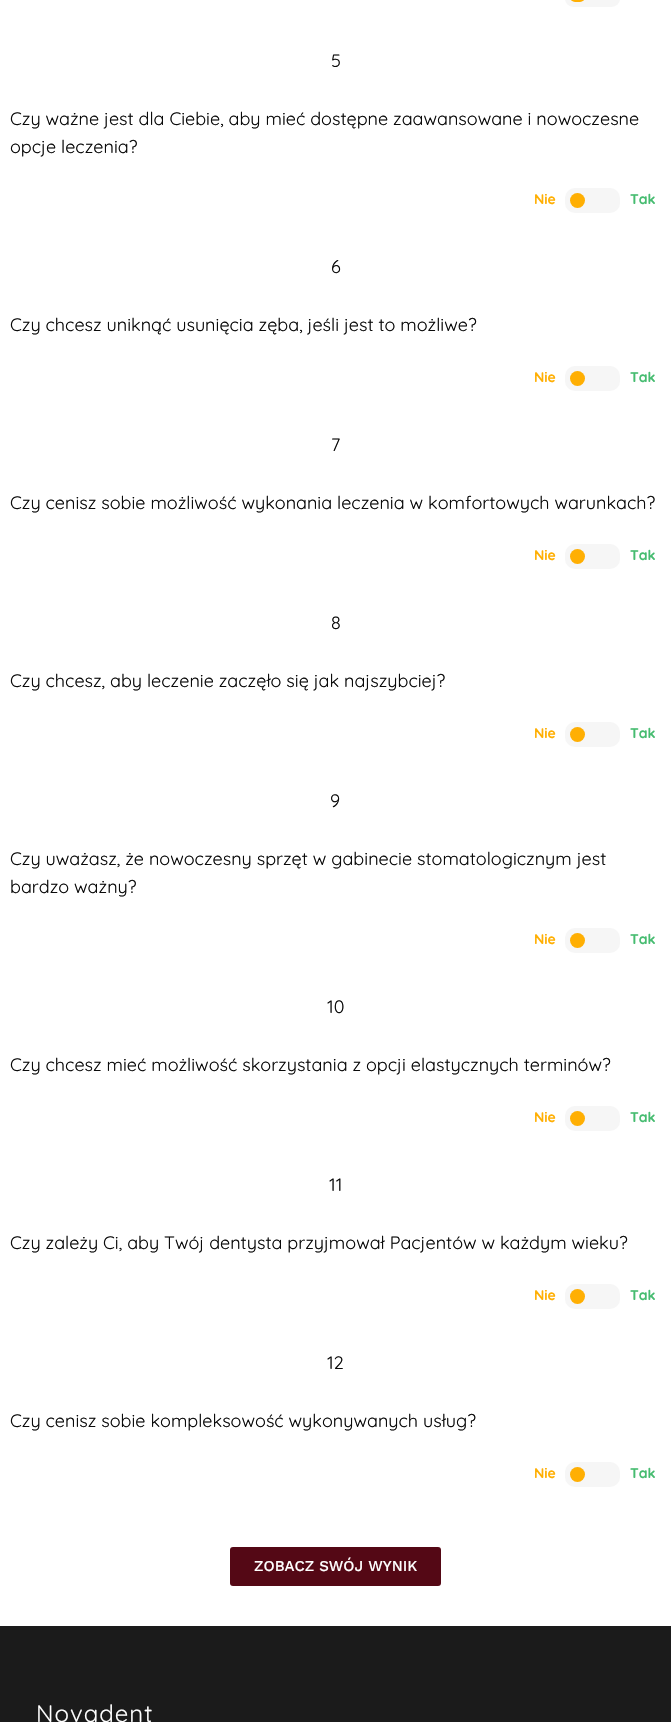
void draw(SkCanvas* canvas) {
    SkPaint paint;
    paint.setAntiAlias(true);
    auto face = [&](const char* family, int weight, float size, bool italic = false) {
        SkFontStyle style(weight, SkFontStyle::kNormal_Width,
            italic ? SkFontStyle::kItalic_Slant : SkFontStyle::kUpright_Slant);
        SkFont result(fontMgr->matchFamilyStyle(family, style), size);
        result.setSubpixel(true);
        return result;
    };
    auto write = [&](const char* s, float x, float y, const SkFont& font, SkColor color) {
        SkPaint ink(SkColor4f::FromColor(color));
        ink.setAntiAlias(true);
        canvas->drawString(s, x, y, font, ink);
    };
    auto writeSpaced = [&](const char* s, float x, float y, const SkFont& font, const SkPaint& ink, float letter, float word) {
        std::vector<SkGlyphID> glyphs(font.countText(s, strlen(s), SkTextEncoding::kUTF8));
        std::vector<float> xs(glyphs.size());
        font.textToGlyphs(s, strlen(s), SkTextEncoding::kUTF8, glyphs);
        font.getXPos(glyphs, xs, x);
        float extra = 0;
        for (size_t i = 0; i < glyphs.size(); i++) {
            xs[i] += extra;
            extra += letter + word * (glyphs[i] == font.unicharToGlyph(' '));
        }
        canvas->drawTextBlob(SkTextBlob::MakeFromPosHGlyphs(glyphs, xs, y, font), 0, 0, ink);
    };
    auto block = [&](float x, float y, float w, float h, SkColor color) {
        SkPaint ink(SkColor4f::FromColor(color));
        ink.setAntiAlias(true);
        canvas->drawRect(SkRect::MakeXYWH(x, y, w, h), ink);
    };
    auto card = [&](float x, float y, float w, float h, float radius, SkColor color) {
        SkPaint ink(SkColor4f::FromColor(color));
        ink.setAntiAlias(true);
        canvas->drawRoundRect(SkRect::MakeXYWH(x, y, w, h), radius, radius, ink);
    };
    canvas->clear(SK_ColorWHITE);
    card(565, -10, 55, 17, 10, SkColorSetRGB(246, 246, 246));
    card(570, -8, 15, 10, 7.5f, SkColorSetRGB(255, 175, 3));
    auto kFont1 = face("Quicksand", 400, 18);
    write("5", 331, 67, kFont1, SkColorSetRGB(10, 10, 10));
    write("Czy ważne jest dla Ciebie, aby mieć dostępne zaawansowane i nowoczesne", 10, 125, kFont1, SkColorSetRGB(10, 10, 10));
    write("opcje leczenia?", 10, 153, kFont1, SkColorSetRGB(10, 10, 10));
    auto kFont2 = face("Quicksand", 700, 14);
    write("Nie", 534, 204, kFont2, SkColorSetRGB(255, 175, 3));
    card(565, 188, 55, 25, 10, SkColorSetRGB(246, 246, 246));
    paint.setColor(SkColorSetRGB(255, 175, 3));
    canvas->drawCircle(577.5f, 200.5f, 7.5f, paint);
    write("Tak", 630, 204, kFont2, SkColorSetRGB(70, 188, 112));
    write("6", 331, 273, kFont1, SkColorSetRGB(10, 10, 10));
    write("Czy chcesz uniknąć usunięcia zęba, jeśli jest to możliwe?", 10, 331, kFont1, SkColorSetRGB(10, 10, 10));
    write("Nie", 534, 382, kFont2, SkColorSetRGB(255, 175, 3));
    card(565, 366, 55, 25, 10, SkColorSetRGB(246, 246, 246));
    canvas->drawCircle(577.5f, 378.5f, 7.5f, paint);
    write("Tak", 630, 382, kFont2, SkColorSetRGB(70, 188, 112));
    write("7", 331, 451, kFont1, SkColorSetRGB(10, 10, 10));
    write("Czy cenisz sobie możliwość wykonania leczenia w komfortowych warunkach?", 10, 509, kFont1, SkColorSetRGB(10, 10, 10));
    write("Nie", 534, 560, kFont2, SkColorSetRGB(255, 175, 3));
    card(565, 544, 55, 25, 10, SkColorSetRGB(246, 246, 246));
    canvas->drawCircle(577.5f, 556.5f, 7.5f, paint);
    write("Tak", 630, 560, kFont2, SkColorSetRGB(70, 188, 112));
    write("8", 331, 629, kFont1, SkColorSetRGB(10, 10, 10));
    write("Czy chcesz, aby leczenie zaczęło się jak najszybciej?", 10, 687, kFont1, SkColorSetRGB(10, 10, 10));
    write("Nie", 534, 738, kFont2, SkColorSetRGB(255, 175, 3));
    card(565, 722, 55, 25, 10, SkColorSetRGB(246, 246, 246));
    canvas->drawCircle(577.5f, 734.5f, 7.5f, paint);
    write("Tak", 630, 738, kFont2, SkColorSetRGB(70, 188, 112));
    write("9", 330, 807, kFont1, SkColorSetRGB(10, 10, 10));
    write("Czy uważasz, że nowoczesny sprzęt w gabinecie stomatologicznym jest", 10, 865, kFont1, SkColorSetRGB(10, 10, 10));
    write("bardzo ważny?", 10, 893, kFont1, SkColorSetRGB(10, 10, 10));
    write("Nie", 534, 944, kFont2, SkColorSetRGB(255, 175, 3));
    card(565, 928, 55, 25, 10, SkColorSetRGB(246, 246, 246));
    canvas->drawCircle(577.5f, 940.5f, 7.5f, paint);
    write("Tak", 630, 944, kFont2, SkColorSetRGB(70, 188, 112));
    write("10", 327, 1013, kFont1, SkColorSetRGB(10, 10, 10));
    write("Czy chcesz mieć możliwość skorzystania z opcji elastycznych terminów?", 10, 1071, kFont1, SkColorSetRGB(10, 10, 10));
    write("Nie", 534, 1122, kFont2, SkColorSetRGB(255, 175, 3));
    card(565, 1106, 55, 25, 10, SkColorSetRGB(246, 246, 246));
    canvas->drawCircle(577.5f, 1118.5f, 7.5f, paint);
    write("Tak", 630, 1122, kFont2, SkColorSetRGB(70, 188, 112));
    write("11", 329, 1191, kFont1, SkColorSetRGB(10, 10, 10));
    write("Czy zależy Ci, aby Twój dentysta przyjmował Pacjentów w każdym wieku?", 10, 1249, kFont1, SkColorSetRGB(10, 10, 10));
    write("Nie", 534, 1300, kFont2, SkColorSetRGB(255, 175, 3));
    card(565, 1284, 55, 25, 10, SkColorSetRGB(246, 246, 246));
    canvas->drawCircle(577.5f, 1296.5f, 7.5f, paint);
    write("Tak", 630, 1300, kFont2, SkColorSetRGB(70, 188, 112));
    write("12", 327, 1369, kFont1, SkColorSetRGB(10, 10, 10));
    write("Czy cenisz sobie kompleksowość wykonywanych usług?", 10, 1427, kFont1, SkColorSetRGB(10, 10, 10));
    write("Nie", 534, 1478, kFont2, SkColorSetRGB(255, 175, 3));
    card(565, 1462, 55, 25, 10, SkColorSetRGB(246, 246, 246));
    canvas->drawCircle(577.5f, 1474.5f, 7.5f, paint);
    write("Tak", 630, 1478, kFont2, SkColorSetRGB(70, 188, 112));
    card(230, 1547, 211, 39, 3, SkColorSetRGB(84, 8, 21));
    auto kFont3 = face("Work Sans", 500, 15);
    write("ZOBACZ SWÓJ WYNIK", 254, 1571, kFont3, SK_ColorWHITE);
    block(0, 1626, 671, 96, SkColorSetRGB(27, 27, 27));
    auto kFont4 = face("Quicksand", 400, 24);
    paint.setColor(SK_ColorWHITE);
    writeSpaced("Novadent", 36, 1722, kFont4, paint, 1, 0);
}
